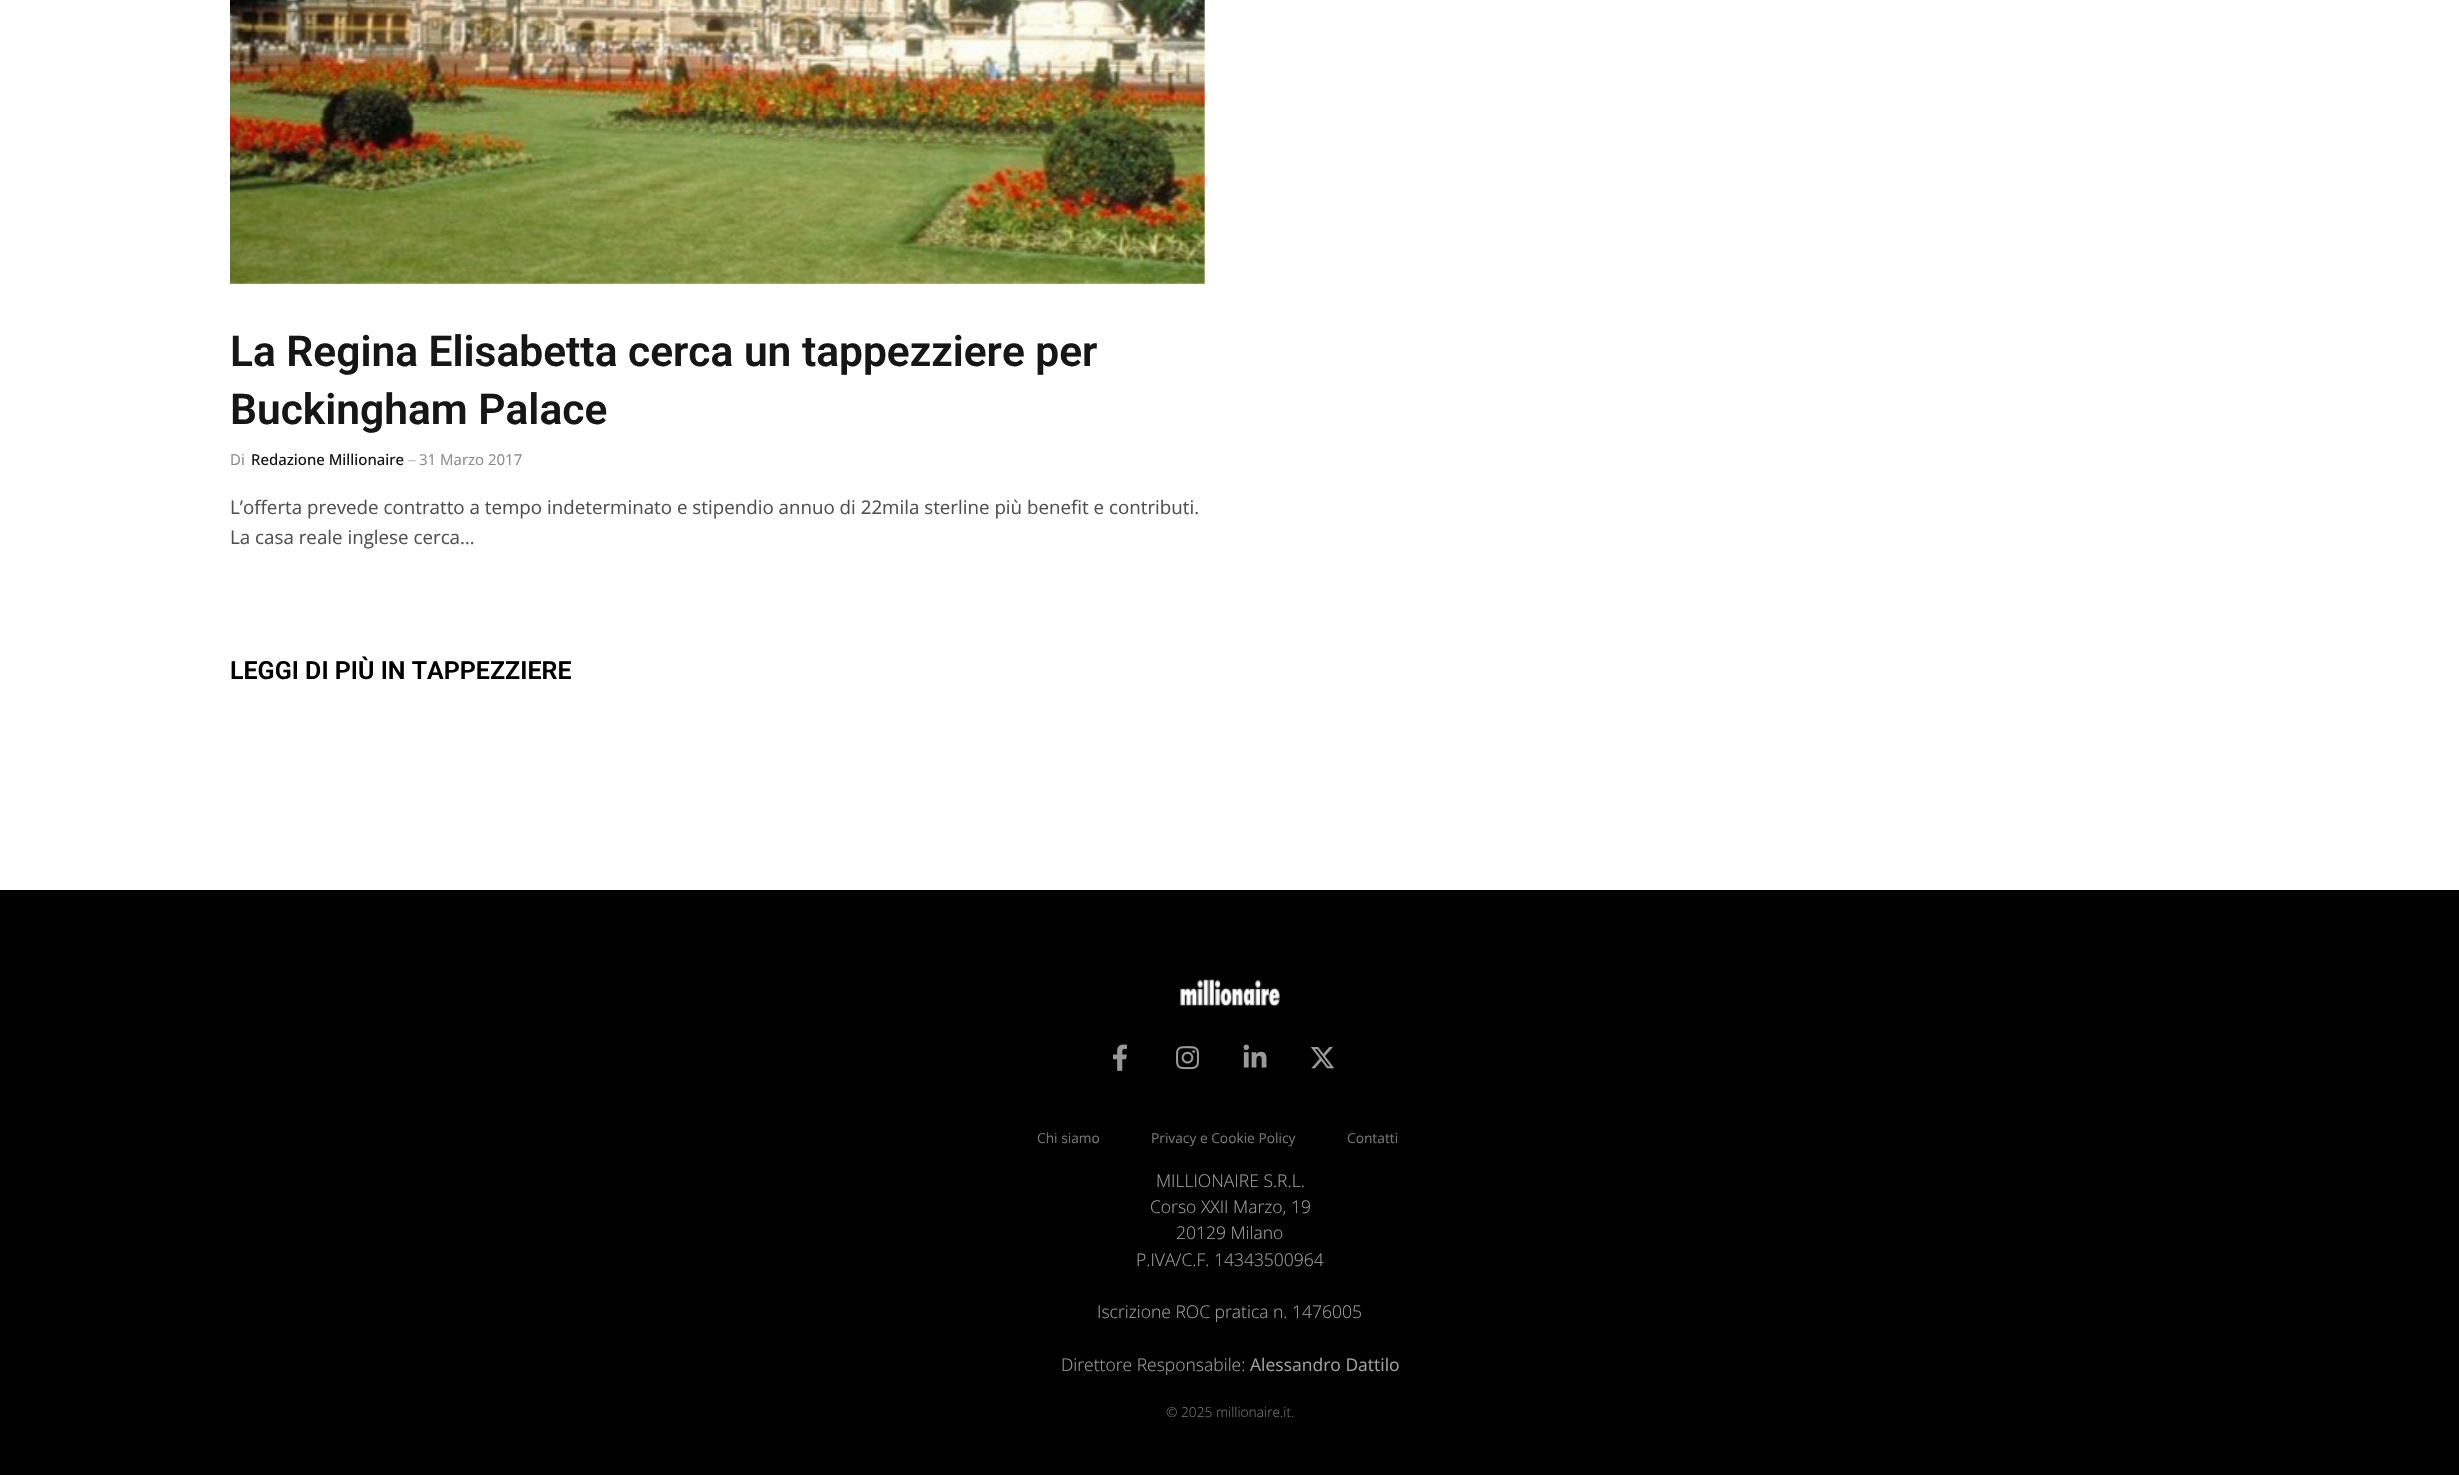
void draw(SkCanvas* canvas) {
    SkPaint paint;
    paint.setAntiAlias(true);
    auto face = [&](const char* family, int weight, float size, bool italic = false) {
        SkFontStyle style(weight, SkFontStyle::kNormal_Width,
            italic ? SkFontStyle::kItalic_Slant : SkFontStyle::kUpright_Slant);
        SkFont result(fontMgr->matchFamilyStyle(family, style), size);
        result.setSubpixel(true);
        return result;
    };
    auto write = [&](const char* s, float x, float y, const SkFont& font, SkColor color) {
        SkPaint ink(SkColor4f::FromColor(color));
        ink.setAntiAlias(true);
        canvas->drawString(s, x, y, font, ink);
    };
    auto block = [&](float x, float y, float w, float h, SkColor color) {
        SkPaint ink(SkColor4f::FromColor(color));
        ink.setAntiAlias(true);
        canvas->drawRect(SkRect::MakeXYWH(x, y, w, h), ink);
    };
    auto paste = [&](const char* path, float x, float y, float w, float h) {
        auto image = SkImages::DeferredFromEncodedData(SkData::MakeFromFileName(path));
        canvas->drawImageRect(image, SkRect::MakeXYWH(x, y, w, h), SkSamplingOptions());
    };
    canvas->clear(SK_ColorWHITE);
    paste("pic1.png", 230, 0, 975, 284);
    auto kFont1 = face("Roboto", 600, 42.5f);
    write("La Regina Elisabetta cerca un tappezziere per", 230, 366, kFont1, SkColorSetRGB(22, 22, 22));
    write("Buckingham Palace", 230, 424, kFont1, SkColorSetRGB(22, 22, 22));
    auto kFont2 = face("Open Sans", 400, 15);
    write("Di", 230, 465, kFont2, SkColorSetRGB(138, 138, 138));
    auto kFont3 = face("Open Sans", 500, 15);
    write("Redazione Millionaire", 251, 465, kFont3, SkColorSetRGB(22, 22, 22));
    auto kFont4 = face("Open Sans", 400, 8);
    write("—", 408, 463, kFont4, SkColorSetRGB(138, 138, 138));
    write("31 Marzo 2017", 419, 465, kFont2, SkColorSetRGB(138, 138, 138));
    auto kFont5 = face("Open Sans", 400, 18.75f);
    write("L’offerta prevede contratto a tempo indeterminato e stipendio annuo di 22mila sterline più benefit e contributi.", 230, 514, kFont5, SkColorSetRGB(80, 80, 80));
    write("La casa reale inglese cerca…", 230, 544, kFont5, SkColorSetRGB(80, 80, 80));
    auto kFont6 = face("Roboto", 600, 25);
    write("LEGGI DI PIÙ IN TAPPEZZIERE", 230, 679, kFont6, SK_ColorBLACK);
    block(0, 890, 2459, 585, SK_ColorBLACK);
    paste("pic2.png", 1180, 979, 100, 27);
    paste("pic3.png", 1113, 1044, 14, 27);
    paste("pic4.png", 1176, 1046, 24, 24);
    paste("pic5.png", 1243, 1044, 24, 24);
    paste("pic6.png", 1310, 1047, 25, 22);
    auto kFont7 = face("Open Sans", 400, 13.75f);
    write("Chi siamo", 1037, 1143, kFont7, SkColorSetRGB(117, 117, 117));
    write("Privacy e Cookie Policy", 1151, 1143, kFont7, SkColorSetRGB(117, 117, 117));
    write("Contatti", 1347, 1143, kFont7, SkColorSetRGB(117, 117, 117));
    auto kFont8 = face("Open Sans", 300, 17.5f);
    write("MILLIONAIRE S.R.L.", 1156, 1187, kFont8, SkColorSetRGB(161, 161, 161));
    write("Corso XXII Marzo, 19", 1150, 1213, kFont8, SkColorSetRGB(161, 161, 161));
    write("20129 Milano", 1176, 1239, kFont8, SkColorSetRGB(161, 161, 161));
    write("P.IVA/C.F. 14343500964", 1136, 1266, kFont8, SkColorSetRGB(161, 161, 161));
    write("Iscrizione ROC pratica n. 1476005", 1097, 1318, kFont8, SkColorSetRGB(161, 161, 161));
    write("Direttore Responsabile:", 1061, 1371, kFont8, SkColorSetRGB(161, 161, 161));
    auto kFont9 = face("Open Sans", 400, 17.5f);
    write("Alessandro Dattilo", 1250, 1371, kFont9, SkColorSetRGB(161, 161, 161));
    auto kFont10 = face("Open Sans", 300, 13.75f);
    write("© 2025 millionaire.it.", 1166, 1417, kFont10, SkColorSetRGB(117, 117, 117));
}
